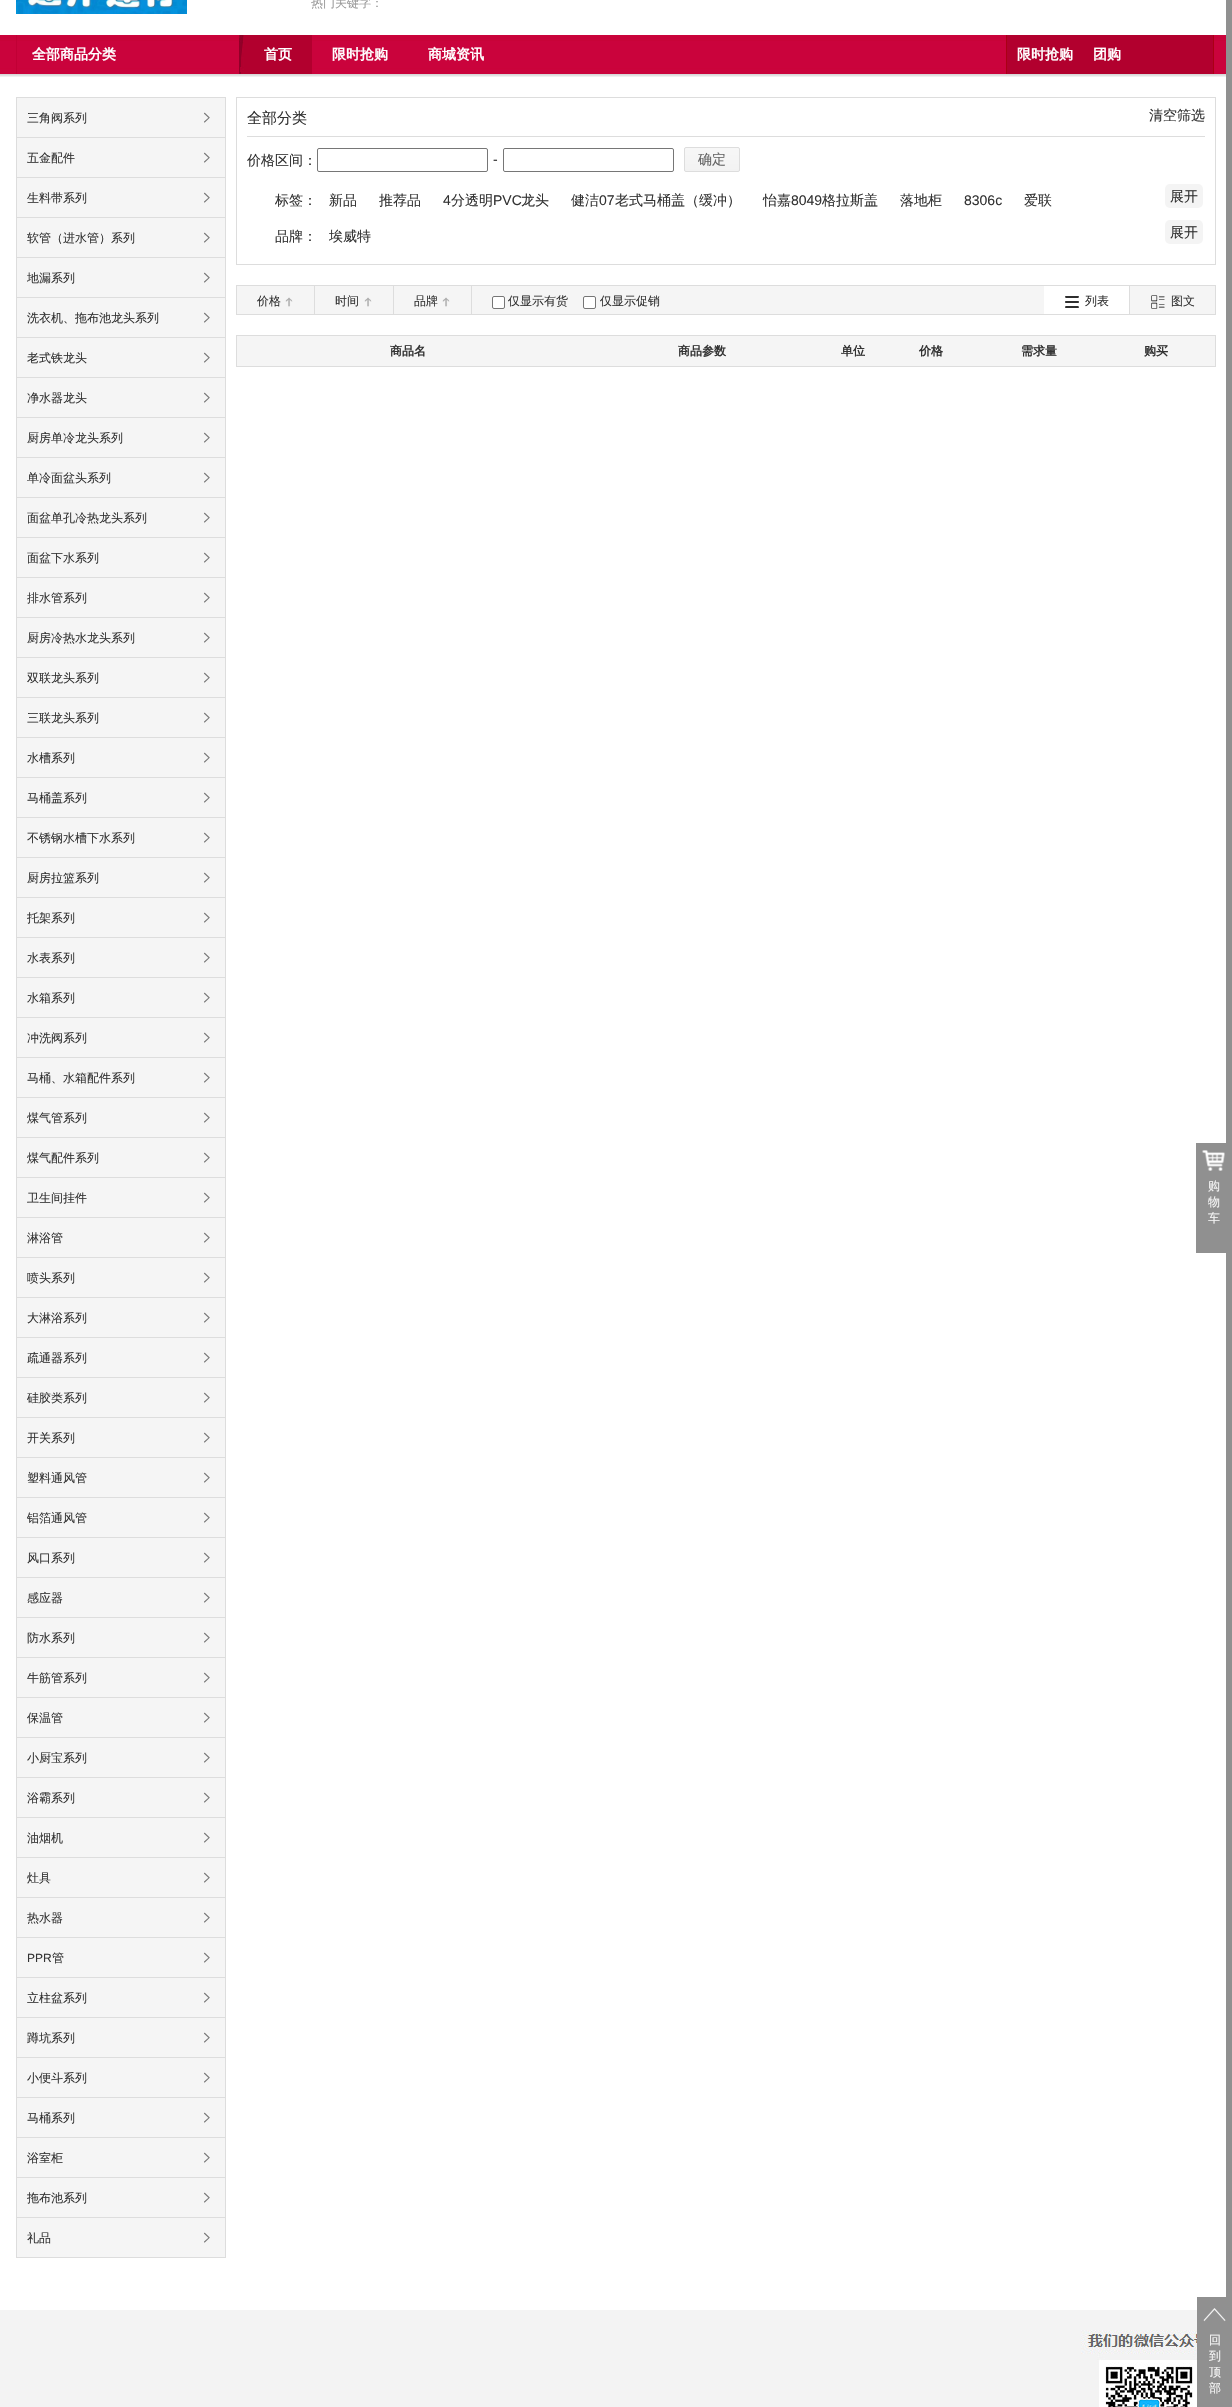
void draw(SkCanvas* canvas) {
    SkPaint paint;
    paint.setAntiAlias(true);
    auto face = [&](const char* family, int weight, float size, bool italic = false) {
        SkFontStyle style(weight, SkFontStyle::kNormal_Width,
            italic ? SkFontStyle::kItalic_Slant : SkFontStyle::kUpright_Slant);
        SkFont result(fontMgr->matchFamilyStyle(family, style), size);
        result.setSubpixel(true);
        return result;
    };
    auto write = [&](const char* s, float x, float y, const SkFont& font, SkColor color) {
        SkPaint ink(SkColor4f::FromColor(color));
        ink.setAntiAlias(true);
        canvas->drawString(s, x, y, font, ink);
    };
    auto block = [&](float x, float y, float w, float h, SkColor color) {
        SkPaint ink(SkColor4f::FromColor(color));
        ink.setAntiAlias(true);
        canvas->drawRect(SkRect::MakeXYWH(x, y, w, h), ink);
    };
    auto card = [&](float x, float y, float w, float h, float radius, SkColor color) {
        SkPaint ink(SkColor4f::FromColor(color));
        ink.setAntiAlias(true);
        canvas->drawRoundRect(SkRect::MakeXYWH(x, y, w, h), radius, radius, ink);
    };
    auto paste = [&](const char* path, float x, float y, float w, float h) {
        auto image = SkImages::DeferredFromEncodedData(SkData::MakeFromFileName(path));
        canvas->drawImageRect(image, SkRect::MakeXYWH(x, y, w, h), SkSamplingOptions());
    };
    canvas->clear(SK_ColorWHITE);
    paste("pic1.png", 16, 0, 171, 14);
    auto kFont1 = face("WenQuanYi Zen Hei", 500, 12);
    write("热门关键字：", 311, 7, kFont1, SkColorSetRGB(153, 153, 153));
    paste("pic2.png", 0, 35, 1226, 42);
    paste("pic3.png", 239, 35, 5, 39);
    block(16, 35, 1, 39, SkColorSetRGB(193, 0, 53));
    auto kFont2 = face("WenQuanYi Zen Hei", 700, 14);
    write("全部商品分类", 32, 59, kFont2, SK_ColorWHITE);
    block(244, 35, 68, 39, SkColorSetRGB(178, 0, 46));
    write("首页", 264, 59, kFont2, SK_ColorWHITE);
    write("限时抢购", 332, 59, kFont2, SK_ColorWHITE);
    write("商城资讯", 428, 59, kFont2, SK_ColorWHITE);
    block(1007, 35, 206, 39, SkColorSetRGB(178, 0, 46));
    block(1213, 35, 1, 39, SkColorSetRGB(170, 0, 20));
    block(1006, 35, 1, 39, SkColorSetRGB(170, 0, 20));
    write("限时抢购", 1017, 59, kFont2, SK_ColorWHITE);
    write("团购", 1093, 59, kFont2, SK_ColorWHITE);
    block(225, 97, 1, 2161, SkColorSetRGB(221, 221, 221));
    block(16, 2257, 210, 1, SkColorSetRGB(221, 221, 221));
    block(16, 97, 1, 2161, SkColorSetRGB(221, 221, 221));
    block(17, 98, 208, 39, SkColorSetRGB(245, 245, 245));
    block(17, 97, 208, 1, SkColorSetRGB(221, 221, 221));
    write("三角阀系列", 27, 122, kFont1, SkColorSetRGB(51, 51, 51));
    paste("pic4.png", 204, 112, 6, 11);
    block(17, 138, 208, 39, SkColorSetRGB(245, 245, 245));
    block(17, 137, 208, 1, SkColorSetRGB(221, 221, 221));
    write("五金配件", 27, 162, kFont1, SkColorSetRGB(51, 51, 51));
    paste("pic4.png", 204, 152, 6, 11);
    block(17, 178, 208, 39, SkColorSetRGB(245, 245, 245));
    block(17, 177, 208, 1, SkColorSetRGB(221, 221, 221));
    write("生料带系列", 27, 202, kFont1, SkColorSetRGB(51, 51, 51));
    paste("pic4.png", 204, 192, 6, 11);
    block(17, 218, 208, 39, SkColorSetRGB(245, 245, 245));
    block(17, 217, 208, 1, SkColorSetRGB(221, 221, 221));
    write("软管（进水管）系列", 27, 242, kFont1, SkColorSetRGB(51, 51, 51));
    paste("pic4.png", 204, 232, 6, 11);
    block(17, 258, 208, 39, SkColorSetRGB(245, 245, 245));
    block(17, 257, 208, 1, SkColorSetRGB(221, 221, 221));
    write("地漏系列", 27, 282, kFont1, SkColorSetRGB(51, 51, 51));
    paste("pic4.png", 204, 272, 6, 11);
    block(17, 298, 208, 39, SkColorSetRGB(245, 245, 245));
    block(17, 297, 208, 1, SkColorSetRGB(221, 221, 221));
    write("洗衣机、拖布池龙头系列", 27, 322, kFont1, SkColorSetRGB(51, 51, 51));
    paste("pic4.png", 204, 312, 6, 11);
    block(17, 338, 208, 39, SkColorSetRGB(245, 245, 245));
    block(17, 337, 208, 1, SkColorSetRGB(221, 221, 221));
    write("老式铁龙头", 27, 362, kFont1, SkColorSetRGB(51, 51, 51));
    paste("pic4.png", 204, 352, 6, 11);
    block(17, 378, 208, 39, SkColorSetRGB(245, 245, 245));
    block(17, 377, 208, 1, SkColorSetRGB(221, 221, 221));
    write("净水器龙头", 27, 402, kFont1, SkColorSetRGB(51, 51, 51));
    paste("pic4.png", 204, 392, 6, 11);
    block(17, 418, 208, 39, SkColorSetRGB(245, 245, 245));
    block(17, 417, 208, 1, SkColorSetRGB(221, 221, 221));
    write("厨房单冷龙头系列", 27, 442, kFont1, SkColorSetRGB(51, 51, 51));
    paste("pic4.png", 204, 432, 6, 11);
    block(17, 458, 208, 39, SkColorSetRGB(245, 245, 245));
    block(17, 457, 208, 1, SkColorSetRGB(221, 221, 221));
    write("单冷面盆头系列", 27, 482, kFont1, SkColorSetRGB(51, 51, 51));
    paste("pic4.png", 204, 472, 6, 11);
    block(17, 498, 208, 39, SkColorSetRGB(245, 245, 245));
    block(17, 497, 208, 1, SkColorSetRGB(221, 221, 221));
    write("面盆单孔冷热龙头系列", 27, 522, kFont1, SkColorSetRGB(51, 51, 51));
    paste("pic4.png", 204, 512, 6, 11);
    block(17, 538, 208, 39, SkColorSetRGB(245, 245, 245));
    block(17, 537, 208, 1, SkColorSetRGB(221, 221, 221));
    write("面盆下水系列", 27, 562, kFont1, SkColorSetRGB(51, 51, 51));
    paste("pic4.png", 204, 552, 6, 11);
    block(17, 578, 208, 39, SkColorSetRGB(245, 245, 245));
    block(17, 577, 208, 1, SkColorSetRGB(221, 221, 221));
    write("排水管系列", 27, 602, kFont1, SkColorSetRGB(51, 51, 51));
    paste("pic4.png", 204, 592, 6, 11);
    block(17, 618, 208, 39, SkColorSetRGB(245, 245, 245));
    block(17, 617, 208, 1, SkColorSetRGB(221, 221, 221));
    write("厨房冷热水龙头系列", 27, 642, kFont1, SkColorSetRGB(51, 51, 51));
    paste("pic4.png", 204, 632, 6, 11);
    block(17, 658, 208, 39, SkColorSetRGB(245, 245, 245));
    block(17, 657, 208, 1, SkColorSetRGB(221, 221, 221));
    write("双联龙头系列", 27, 682, kFont1, SkColorSetRGB(51, 51, 51));
    paste("pic4.png", 204, 672, 6, 11);
    block(17, 698, 208, 39, SkColorSetRGB(245, 245, 245));
    block(17, 697, 208, 1, SkColorSetRGB(221, 221, 221));
    write("三联龙头系列", 27, 722, kFont1, SkColorSetRGB(51, 51, 51));
    paste("pic4.png", 204, 712, 6, 11);
    block(17, 738, 208, 39, SkColorSetRGB(245, 245, 245));
    block(17, 737, 208, 1, SkColorSetRGB(221, 221, 221));
    write("水槽系列", 27, 762, kFont1, SkColorSetRGB(51, 51, 51));
    paste("pic4.png", 204, 752, 6, 11);
    block(17, 778, 208, 39, SkColorSetRGB(245, 245, 245));
    block(17, 777, 208, 1, SkColorSetRGB(221, 221, 221));
    write("马桶盖系列", 27, 802, kFont1, SkColorSetRGB(51, 51, 51));
    paste("pic4.png", 204, 792, 6, 11);
    block(17, 818, 208, 39, SkColorSetRGB(245, 245, 245));
    block(17, 817, 208, 1, SkColorSetRGB(221, 221, 221));
    write("不锈钢水槽下水系列", 27, 842, kFont1, SkColorSetRGB(51, 51, 51));
    paste("pic4.png", 204, 832, 6, 11);
    block(17, 858, 208, 39, SkColorSetRGB(245, 245, 245));
    block(17, 857, 208, 1, SkColorSetRGB(221, 221, 221));
    write("厨房拉篮系列", 27, 882, kFont1, SkColorSetRGB(51, 51, 51));
    paste("pic4.png", 204, 872, 6, 11);
    block(17, 898, 208, 39, SkColorSetRGB(245, 245, 245));
    block(17, 897, 208, 1, SkColorSetRGB(221, 221, 221));
    write("托架系列", 27, 922, kFont1, SkColorSetRGB(51, 51, 51));
    paste("pic4.png", 204, 912, 6, 11);
    block(17, 938, 208, 39, SkColorSetRGB(245, 245, 245));
    block(17, 937, 208, 1, SkColorSetRGB(221, 221, 221));
    write("水表系列", 27, 962, kFont1, SkColorSetRGB(51, 51, 51));
    paste("pic4.png", 204, 952, 6, 11);
    block(17, 978, 208, 39, SkColorSetRGB(245, 245, 245));
    block(17, 977, 208, 1, SkColorSetRGB(221, 221, 221));
    write("水箱系列", 27, 1002, kFont1, SkColorSetRGB(51, 51, 51));
    paste("pic4.png", 204, 992, 6, 11);
    block(17, 1018, 208, 39, SkColorSetRGB(245, 245, 245));
    block(17, 1017, 208, 1, SkColorSetRGB(221, 221, 221));
    write("冲洗阀系列", 27, 1042, kFont1, SkColorSetRGB(51, 51, 51));
    paste("pic4.png", 204, 1032, 6, 11);
    block(17, 1058, 208, 39, SkColorSetRGB(245, 245, 245));
    block(17, 1057, 208, 1, SkColorSetRGB(221, 221, 221));
    write("马桶、水箱配件系列", 27, 1082, kFont1, SkColorSetRGB(51, 51, 51));
    paste("pic4.png", 204, 1072, 6, 11);
    block(17, 1098, 208, 39, SkColorSetRGB(245, 245, 245));
    block(17, 1097, 208, 1, SkColorSetRGB(221, 221, 221));
    write("煤气管系列", 27, 1122, kFont1, SkColorSetRGB(51, 51, 51));
    paste("pic4.png", 204, 1112, 6, 11);
    block(17, 1138, 208, 39, SkColorSetRGB(245, 245, 245));
    block(17, 1137, 208, 1, SkColorSetRGB(221, 221, 221));
    write("煤气配件系列", 27, 1162, kFont1, SkColorSetRGB(51, 51, 51));
    paste("pic4.png", 204, 1152, 6, 11);
    block(17, 1178, 208, 39, SkColorSetRGB(245, 245, 245));
    block(17, 1177, 208, 1, SkColorSetRGB(221, 221, 221));
    write("卫生间挂件", 27, 1202, kFont1, SkColorSetRGB(51, 51, 51));
    paste("pic4.png", 204, 1192, 6, 11);
    block(17, 1218, 208, 39, SkColorSetRGB(245, 245, 245));
    block(17, 1217, 208, 1, SkColorSetRGB(221, 221, 221));
    write("淋浴管", 27, 1242, kFont1, SkColorSetRGB(51, 51, 51));
    paste("pic4.png", 204, 1232, 6, 11);
    block(17, 1258, 208, 39, SkColorSetRGB(245, 245, 245));
    block(17, 1257, 208, 1, SkColorSetRGB(221, 221, 221));
    write("喷头系列", 27, 1282, kFont1, SkColorSetRGB(51, 51, 51));
    paste("pic4.png", 204, 1272, 6, 11);
    block(17, 1298, 208, 39, SkColorSetRGB(245, 245, 245));
    block(17, 1297, 208, 1, SkColorSetRGB(221, 221, 221));
    write("大淋浴系列", 27, 1322, kFont1, SkColorSetRGB(51, 51, 51));
    paste("pic4.png", 204, 1312, 6, 11);
    block(17, 1338, 208, 39, SkColorSetRGB(245, 245, 245));
    block(17, 1337, 208, 1, SkColorSetRGB(221, 221, 221));
    write("疏通器系列", 27, 1362, kFont1, SkColorSetRGB(51, 51, 51));
    paste("pic4.png", 204, 1352, 6, 11);
    block(17, 1378, 208, 39, SkColorSetRGB(245, 245, 245));
    block(17, 1377, 208, 1, SkColorSetRGB(221, 221, 221));
    write("硅胶类系列", 27, 1402, kFont1, SkColorSetRGB(51, 51, 51));
    paste("pic4.png", 204, 1392, 6, 11);
    block(17, 1418, 208, 39, SkColorSetRGB(245, 245, 245));
    block(17, 1417, 208, 1, SkColorSetRGB(221, 221, 221));
    write("开关系列", 27, 1442, kFont1, SkColorSetRGB(51, 51, 51));
    paste("pic4.png", 204, 1432, 6, 11);
    block(17, 1458, 208, 39, SkColorSetRGB(245, 245, 245));
    block(17, 1457, 208, 1, SkColorSetRGB(221, 221, 221));
    write("塑料通风管", 27, 1482, kFont1, SkColorSetRGB(51, 51, 51));
    paste("pic4.png", 204, 1472, 6, 11);
    block(17, 1498, 208, 39, SkColorSetRGB(245, 245, 245));
    block(17, 1497, 208, 1, SkColorSetRGB(221, 221, 221));
    write("铝箔通风管", 27, 1522, kFont1, SkColorSetRGB(51, 51, 51));
    paste("pic4.png", 204, 1512, 6, 11);
    block(17, 1538, 208, 39, SkColorSetRGB(245, 245, 245));
    block(17, 1537, 208, 1, SkColorSetRGB(221, 221, 221));
    write("风口系列", 27, 1562, kFont1, SkColorSetRGB(51, 51, 51));
    paste("pic4.png", 204, 1552, 6, 11);
    block(17, 1578, 208, 39, SkColorSetRGB(245, 245, 245));
    block(17, 1577, 208, 1, SkColorSetRGB(221, 221, 221));
    write("感应器", 27, 1602, kFont1, SkColorSetRGB(51, 51, 51));
    paste("pic4.png", 204, 1592, 6, 11);
    block(17, 1618, 208, 39, SkColorSetRGB(245, 245, 245));
    block(17, 1617, 208, 1, SkColorSetRGB(221, 221, 221));
    write("防水系列", 27, 1642, kFont1, SkColorSetRGB(51, 51, 51));
    paste("pic4.png", 204, 1632, 6, 11);
    block(17, 1658, 208, 39, SkColorSetRGB(245, 245, 245));
    block(17, 1657, 208, 1, SkColorSetRGB(221, 221, 221));
    write("牛筋管系列", 27, 1682, kFont1, SkColorSetRGB(51, 51, 51));
    paste("pic4.png", 204, 1672, 6, 11);
    block(17, 1698, 208, 39, SkColorSetRGB(245, 245, 245));
    block(17, 1697, 208, 1, SkColorSetRGB(221, 221, 221));
    write("保温管", 27, 1722, kFont1, SkColorSetRGB(51, 51, 51));
    paste("pic4.png", 204, 1712, 6, 11);
    block(17, 1738, 208, 39, SkColorSetRGB(245, 245, 245));
    block(17, 1737, 208, 1, SkColorSetRGB(221, 221, 221));
    write("小厨宝系列", 27, 1762, kFont1, SkColorSetRGB(51, 51, 51));
    paste("pic4.png", 204, 1752, 6, 11);
    block(17, 1778, 208, 39, SkColorSetRGB(245, 245, 245));
    block(17, 1777, 208, 1, SkColorSetRGB(221, 221, 221));
    write("浴霸系列", 27, 1802, kFont1, SkColorSetRGB(51, 51, 51));
    paste("pic4.png", 204, 1792, 6, 11);
    block(17, 1818, 208, 39, SkColorSetRGB(245, 245, 245));
    block(17, 1817, 208, 1, SkColorSetRGB(221, 221, 221));
    write("油烟机", 27, 1842, kFont1, SkColorSetRGB(51, 51, 51));
    paste("pic4.png", 204, 1832, 6, 11);
    block(17, 1858, 208, 39, SkColorSetRGB(245, 245, 245));
    block(17, 1857, 208, 1, SkColorSetRGB(221, 221, 221));
    write("灶具", 27, 1882, kFont1, SkColorSetRGB(51, 51, 51));
    paste("pic4.png", 204, 1872, 6, 11);
    block(17, 1898, 208, 39, SkColorSetRGB(245, 245, 245));
    block(17, 1897, 208, 1, SkColorSetRGB(221, 221, 221));
    write("热水器", 27, 1922, kFont1, SkColorSetRGB(51, 51, 51));
    paste("pic4.png", 204, 1912, 6, 11);
    block(17, 1938, 208, 39, SkColorSetRGB(245, 245, 245));
    block(17, 1937, 208, 1, SkColorSetRGB(221, 221, 221));
    auto kFont3 = face("Liberation Sans", 400, 12);
    write("PPR", 27, 1962, kFont3, SkColorSetRGB(51, 51, 51));
    write("管", 52, 1962, kFont1, SkColorSetRGB(51, 51, 51));
    paste("pic4.png", 204, 1952, 6, 11);
    block(17, 1978, 208, 39, SkColorSetRGB(245, 245, 245));
    block(17, 1977, 208, 1, SkColorSetRGB(221, 221, 221));
    write("立柱盆系列", 27, 2002, kFont1, SkColorSetRGB(51, 51, 51));
    paste("pic4.png", 204, 1992, 6, 11);
    block(17, 2018, 208, 39, SkColorSetRGB(245, 245, 245));
    block(17, 2017, 208, 1, SkColorSetRGB(221, 221, 221));
    write("蹲坑系列", 27, 2042, kFont1, SkColorSetRGB(51, 51, 51));
    paste("pic4.png", 204, 2032, 6, 11);
    block(17, 2058, 208, 39, SkColorSetRGB(245, 245, 245));
    block(17, 2057, 208, 1, SkColorSetRGB(221, 221, 221));
    write("小便斗系列", 27, 2082, kFont1, SkColorSetRGB(51, 51, 51));
    paste("pic4.png", 204, 2072, 6, 11);
    block(17, 2098, 208, 39, SkColorSetRGB(245, 245, 245));
    block(17, 2097, 208, 1, SkColorSetRGB(221, 221, 221));
    write("马桶系列", 27, 2122, kFont1, SkColorSetRGB(51, 51, 51));
    paste("pic4.png", 204, 2112, 6, 11);
    block(17, 2138, 208, 39, SkColorSetRGB(245, 245, 245));
    block(17, 2137, 208, 1, SkColorSetRGB(221, 221, 221));
    write("浴室柜", 27, 2162, kFont1, SkColorSetRGB(51, 51, 51));
    paste("pic4.png", 204, 2152, 6, 11);
    block(17, 2178, 208, 39, SkColorSetRGB(245, 245, 245));
    block(17, 2177, 208, 1, SkColorSetRGB(221, 221, 221));
    write("拖布池系列", 27, 2202, kFont1, SkColorSetRGB(51, 51, 51));
    paste("pic4.png", 204, 2192, 6, 11);
    block(17, 2218, 208, 39, SkColorSetRGB(245, 245, 245));
    block(17, 2217, 208, 1, SkColorSetRGB(221, 221, 221));
    write("礼品", 27, 2242, kFont1, SkColorSetRGB(51, 51, 51));
    paste("pic4.png", 204, 2232, 6, 11);
    paint.setStyle(SkPaint::kStroke_Style);
    paint.setStrokeWidth(1);
    paint.setColor(SkColorSetRGB(221, 221, 221));
    canvas->drawRect(SkRect::MakeXYWH(236.5f, 97.5f, 979, 167), paint);
    block(247, 136, 958, 1, SkColorSetRGB(221, 221, 221));
    auto kFont4 = face("WenQuanYi Zen Hei", 500, 15);
    write("全部分类", 247, 123, kFont4, SkColorSetRGB(51, 51, 51));
    auto kFont5 = face("WenQuanYi Zen Hei", 500, 14);
    write("清空筛选", 1149, 120, kFont5, SkColorSetRGB(51, 51, 51));
    write("价格区间：", 247, 165, kFont5, SkColorSetRGB(51, 51, 51));
    paint.setColor(SkColorSetRGB(118, 118, 118));
    canvas->drawRoundRect(SkRect::MakeXYWH(317.5f, 148.5f, 170, 23), 1.5f, 1.5f, paint);
    auto kFont6 = face("Liberation Sans", 400, 14);
    write("-", 493, 164, kFont6, SkColorSetRGB(51, 51, 51));
    canvas->drawRoundRect(SkRect::MakeXYWH(503.5f, 148.5f, 170, 23), 1.5f, 1.5f, paint);
    canvas->save();
    canvas->clipPath(SkPathBuilder().moveTo(686, 147).lineTo(738, 147).cubicTo(739, 147, 740, 148, 740, 149).lineTo(740, 170).cubicTo(740, 171, 739, 172, 738, 172).lineTo(686, 172).cubicTo(685, 172, 684, 171, 684, 170).lineTo(684, 149).cubicTo(684, 148, 685, 147, 686, 147).close().detach(), true);
    paint.setStyle(SkPaint::kFill_Style);
    {
        const SkColor colors[] = {SkColorSetRGB(247, 247, 247), SkColorSetRGB(242, 242, 242)};
        const float stops[] = {0, 1};
        const SkPoint ends[] = {{712, 148}, {712, 171}};
        paint.setShader(SkGradientShader::MakeLinear(ends, colors, stops, 2, SkTileMode::kClamp));
        paint.setAlpha(255);
    }
    canvas->drawRect(SkRect::MakeXYWH(684, 148, 56, 23), paint);
    canvas->restore();
    paint.setStyle(SkPaint::kStroke_Style);
    paint.setShader(nullptr);
    paint.setColor(SkColorSetRGB(221, 221, 221));
    canvas->drawRoundRect(SkRect::MakeXYWH(684.5f, 147.5f, 55, 24), 1.5f, 1.5f, paint);
    write("确定", 698, 164, kFont5, SkColorSetRGB(102, 102, 102));
    write("标签：", 275, 205, kFont5, SkColorSetRGB(51, 51, 51));
    write("新品", 329, 205, kFont5, SkColorSetRGB(51, 51, 51));
    write("推荐品", 379, 205, kFont5, SkColorSetRGB(51, 51, 51));
    write("4", 443, 205, kFont6, SkColorSetRGB(51, 51, 51));
    write("分透明", 451, 205, kFont5, SkColorSetRGB(51, 51, 51));
    write("PVC", 493, 205, kFont6, SkColorSetRGB(51, 51, 51));
    write("龙头", 521, 205, kFont5, SkColorSetRGB(51, 51, 51));
    write("健洁", 571, 205, kFont5, SkColorSetRGB(51, 51, 51));
    write("07", 599, 205, kFont6, SkColorSetRGB(51, 51, 51));
    write("老式马桶盖（缓冲）", 615, 205, kFont5, SkColorSetRGB(51, 51, 51));
    write("怡嘉", 763, 205, kFont5, SkColorSetRGB(51, 51, 51));
    write("8049", 791, 205, kFont6, SkColorSetRGB(51, 51, 51));
    write("格拉斯盖", 822, 205, kFont5, SkColorSetRGB(51, 51, 51));
    write("落地柜", 900, 205, kFont5, SkColorSetRGB(51, 51, 51));
    write("8306c", 964, 205, kFont6, SkColorSetRGB(51, 51, 51));
    write("爱联", 1024, 205, kFont5, SkColorSetRGB(51, 51, 51));
    card(1165, 184, 38, 24, 5, SkColorSetRGB(244, 244, 244));
    write("展开", 1170, 201, kFont5, SkColorSetRGB(51, 51, 51));
    write("品牌：", 275, 241, kFont5, SkColorSetRGB(51, 51, 51));
    write("埃威特", 329, 241, kFont5, SkColorSetRGB(51, 51, 51));
    card(1165, 220, 38, 24, 5, SkColorSetRGB(244, 244, 244));
    write("展开", 1170, 237, kFont5, SkColorSetRGB(51, 51, 51));
    paint.setStyle(SkPaint::kFill_Style);
    paint.setColor(SkColorSetRGB(245, 245, 245));
    canvas->drawRect(SkRect::MakeXYWH(236.5f, 285.5f, 979, 29), paint);
    paint.setStyle(SkPaint::kStroke_Style);
    paint.setColor(SkColorSetRGB(221, 221, 221));
    canvas->drawRect(SkRect::MakeXYWH(236.5f, 285.5f, 979, 29), paint);
    block(314, 286, 1, 28, SkColorSetRGB(221, 221, 221));
    write("价格", 257, 305, kFont1, SkColorSetRGB(51, 51, 51));
    paste("pic5.png", 285, 297, 8, 10);
    block(393, 286, 1, 28, SkColorSetRGB(221, 221, 221));
    write("时间", 335, 305, kFont1, SkColorSetRGB(51, 51, 51));
    paste("pic5.png", 364, 297, 8, 10);
    block(471, 286, 1, 28, SkColorSetRGB(221, 221, 221));
    write("品牌", 414, 305, kFont1, SkColorSetRGB(51, 51, 51));
    paste("pic5.png", 442, 297, 8, 10);
    paint.setStyle(SkPaint::kFill_Style);
    paint.setColor(SK_ColorWHITE);
    canvas->drawRoundRect(SkRect::MakeXYWH(492.5f, 296.5f, 12, 12), 1.5f, 1.5f, paint);
    paint.setStyle(SkPaint::kStroke_Style);
    paint.setColor(SkColorSetRGB(118, 118, 118));
    canvas->drawRoundRect(SkRect::MakeXYWH(492.5f, 296.5f, 12, 12), 1.5f, 1.5f, paint);
    write("仅显示有货", 508, 305, kFont1, SkColorSetRGB(51, 51, 51));
    paint.setStyle(SkPaint::kFill_Style);
    paint.setColor(SK_ColorWHITE);
    canvas->drawRoundRect(SkRect::MakeXYWH(583.5f, 296.5f, 12, 12), 1.5f, 1.5f, paint);
    paint.setStyle(SkPaint::kStroke_Style);
    paint.setColor(SkColorSetRGB(118, 118, 118));
    canvas->drawRoundRect(SkRect::MakeXYWH(583.5f, 296.5f, 12, 12), 1.5f, 1.5f, paint);
    write("仅显示促销", 600, 305, kFont1, SkColorSetRGB(51, 51, 51));
    block(1044, 286, 85, 28, SK_ColorWHITE);
    block(1129, 286, 1, 28, SkColorSetRGB(221, 221, 221));
    paste("pic6.png", 1065, 296, 14, 12);
    write("列表", 1085, 305, kFont1, SkColorSetRGB(51, 51, 51));
    paste("pic7.png", 1151, 295, 14, 14);
    write("图文", 1171, 305, kFont1, SkColorSetRGB(51, 51, 51));
    paint.setColor(SkColorSetRGB(221, 221, 221));
    canvas->drawRect(SkRect::MakeXYWH(236.5f, 335.5f, 979, 31), paint);
    block(237, 336, 978, 30, SkColorSetRGB(245, 245, 245));
    auto kFont7 = face("WenQuanYi Zen Hei", 700, 12);
    write("商品名", 390, 355, kFont7, SkColorSetRGB(51, 51, 51));
    write("商品参数", 678, 355, kFont7, SkColorSetRGB(51, 51, 51));
    write("单位", 841, 355, kFont7, SkColorSetRGB(51, 51, 51));
    write("价格", 919, 355, kFont7, SkColorSetRGB(51, 51, 51));
    write("需求量", 1021, 355, kFont7, SkColorSetRGB(51, 51, 51));
    write("购买", 1144, 355, kFont7, SkColorSetRGB(51, 51, 51));
    block(1226, 0, 6, 2297, SkColorSetRGB(144, 144, 144));
    block(1196, 1143, 30, 110, SkColorSetRGB(144, 144, 144));
    paste("pic8.png", 1202, 1150, 23, 21);
    write("购", 1208, 1190, kFont1, SkColorSetRGB(245, 245, 245));
    write("物", 1208, 1206, kFont1, SkColorSetRGB(245, 245, 245));
    write("车", 1208, 1222, kFont1, SkColorSetRGB(245, 245, 245));
    block(1197, 2297, 35, 110, SkColorSetRGB(144, 144, 144));
    paste("pic9.png", 1203, 2308, 23, 14);
    write("回", 1209, 2344, kFont1, SkColorSetRGB(245, 245, 245));
    write("到", 1209, 2360, kFont1, SkColorSetRGB(245, 245, 245));
    write("顶", 1209, 2376, kFont1, SkColorSetRGB(245, 245, 245));
    write("部", 1209, 2392, kFont1, SkColorSetRGB(245, 245, 245));
    block(0, 2310, 1197, 97, SkColorSetRGB(243, 243, 243));
    paste("pic10.png", 1081, 2330, 116, 77);
}
